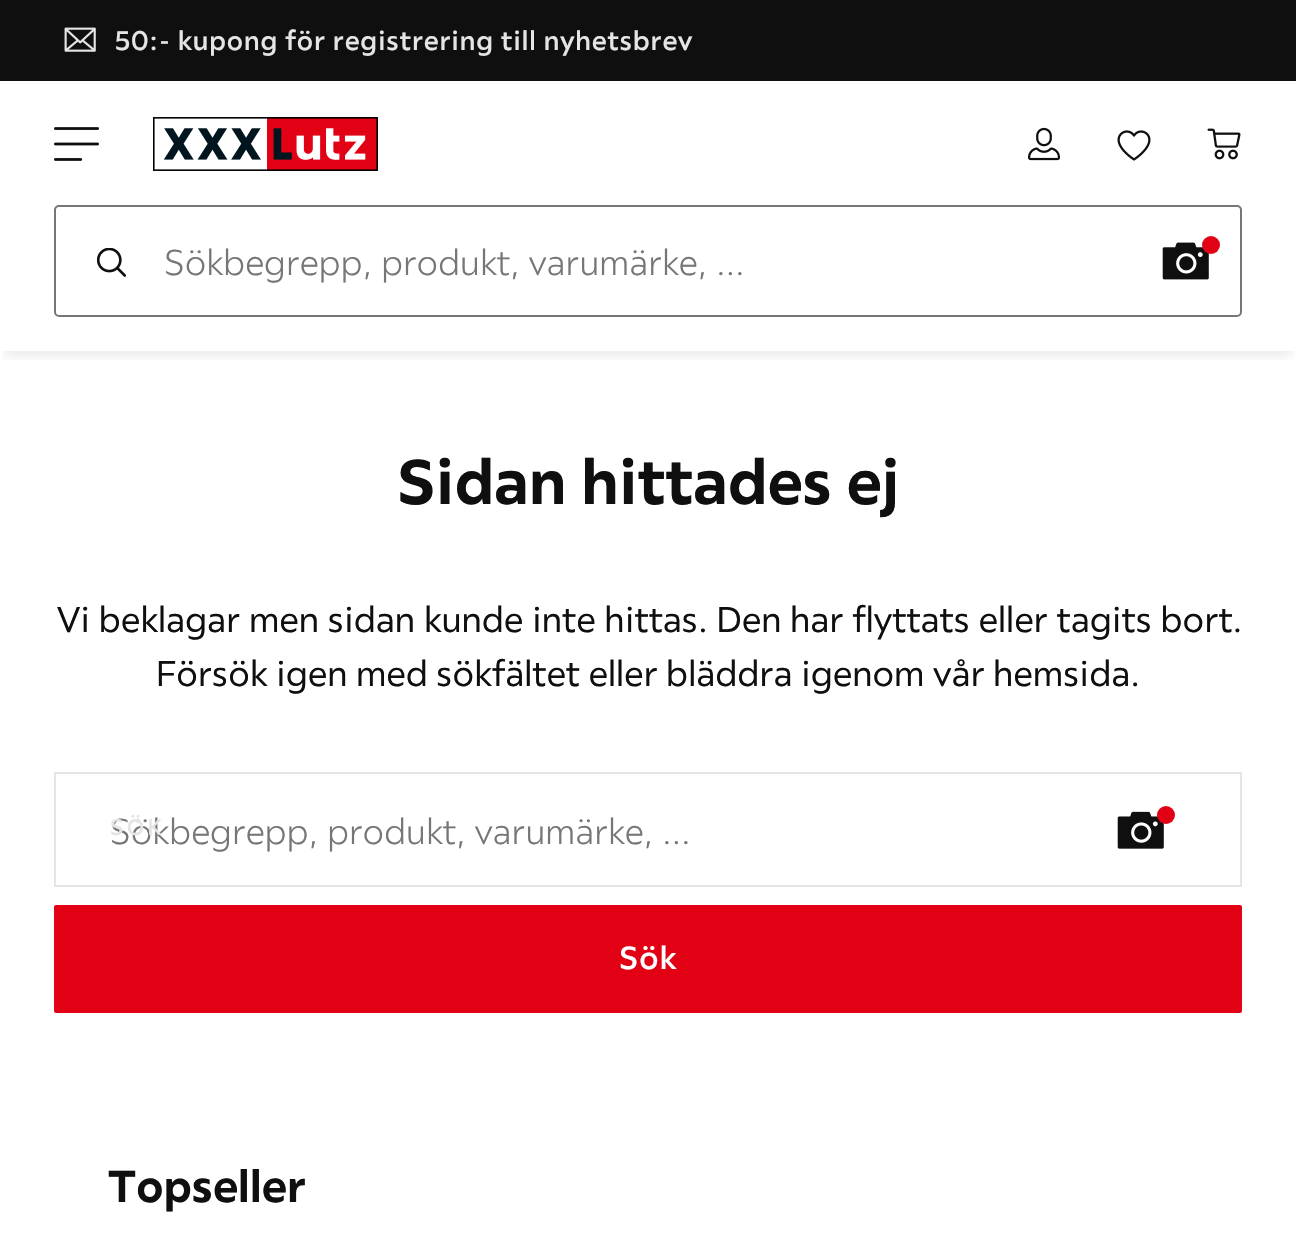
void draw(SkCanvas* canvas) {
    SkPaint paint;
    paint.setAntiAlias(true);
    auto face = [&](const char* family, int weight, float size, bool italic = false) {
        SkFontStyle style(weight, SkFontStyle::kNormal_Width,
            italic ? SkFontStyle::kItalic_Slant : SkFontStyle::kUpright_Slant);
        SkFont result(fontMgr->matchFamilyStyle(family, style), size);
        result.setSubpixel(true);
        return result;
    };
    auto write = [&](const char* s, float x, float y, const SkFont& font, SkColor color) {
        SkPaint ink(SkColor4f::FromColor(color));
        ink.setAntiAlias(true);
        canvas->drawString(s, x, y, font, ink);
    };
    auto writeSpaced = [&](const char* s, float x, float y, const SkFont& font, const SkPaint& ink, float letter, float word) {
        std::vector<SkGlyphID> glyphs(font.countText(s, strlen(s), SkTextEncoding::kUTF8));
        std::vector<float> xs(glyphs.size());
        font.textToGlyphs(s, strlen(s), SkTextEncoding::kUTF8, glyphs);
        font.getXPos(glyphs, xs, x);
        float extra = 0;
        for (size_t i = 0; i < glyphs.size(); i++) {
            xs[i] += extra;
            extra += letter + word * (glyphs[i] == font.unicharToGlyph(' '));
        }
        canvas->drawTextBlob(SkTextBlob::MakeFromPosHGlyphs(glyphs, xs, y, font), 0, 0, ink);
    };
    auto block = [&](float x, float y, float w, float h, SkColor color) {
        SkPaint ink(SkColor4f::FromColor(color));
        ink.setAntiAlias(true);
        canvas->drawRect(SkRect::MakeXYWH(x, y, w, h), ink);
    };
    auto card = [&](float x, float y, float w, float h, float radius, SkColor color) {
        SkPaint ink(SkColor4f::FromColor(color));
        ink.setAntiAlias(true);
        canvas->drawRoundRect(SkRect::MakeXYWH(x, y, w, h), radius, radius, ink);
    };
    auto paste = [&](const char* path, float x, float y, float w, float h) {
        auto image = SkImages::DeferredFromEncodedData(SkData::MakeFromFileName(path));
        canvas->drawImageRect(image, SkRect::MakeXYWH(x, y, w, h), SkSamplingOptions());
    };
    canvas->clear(SK_ColorWHITE);
    canvas->save();
    canvas->clipRect(SkRect::MakeXYWH(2, 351, 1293, 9));
    paint.setColor(SkColorSetARGB(20, 0, 0, 0));
    paint.setMaskFilter(SkMaskFilter::MakeBlur(kNormal_SkBlurStyle, 5.5f));
    canvas->drawRect(SkRect::MakeXYWH(5, 14, 1287, 342), paint);
    paint.setMaskFilter(nullptr);
    canvas->restore();
    block(0, 0, 1296, 81, SkColorSetRGB(15, 15, 15));
    paste("pic1.png", 64, 27, 32, 25);
    auto kFont1 = face("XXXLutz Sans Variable", 500, 27);
    paint.setColor(SkColorSetRGB(229, 229, 229));
    writeSpaced("50:- kupong för registrering till nyhetsbrev", 115, 50, kFont1, paint, 0.9f, 0);
    paste("pic2.png", 54, 127, 45, 34);
    paste("pic3.png", 153, 117, 225, 54);
    paste("pic4.png", 1028, 127, 33, 34);
    paste("pic5.png", 1117, 130, 34, 31);
    paste("pic6.png", 1207, 128, 34, 32);
    paint.setStyle(SkPaint::kStroke_Style);
    paint.setStrokeWidth(2);
    paint.setColor(SkColorSetRGB(118, 118, 118));
    canvas->drawRoundRect(SkRect::MakeXYWH(55, 206, 1186, 110), 4, 4, paint);
    paste("pic7.png", 97, 248, 29, 29);
    auto kFont2 = face("XXXLutz Sans Variable", 300, 36);
    paint.setStyle(SkPaint::kFill_Style);
    writeSpaced("Sökbegrepp, produkt, varumärke, ...", 164, 275, kFont2, paint, 0.25f, 0.25f);
    paste("pic8.png", 1162, 242, 47, 38);
    paint.setColor(SkColorSetRGB(226, 0, 21));
    canvas->drawCircle(1211, 245, 9, paint);
    auto kFont3 = face("XXXLutz Sans Variable", 700, 63);
    paint.setColor(SkColorSetRGB(15, 15, 15));
    writeSpaced("Sidan hittades ej", 397, 504, kFont3, paint, 0.25f, 0);
    auto kFont4 = face("XXXLutz Sans Variable", 400, 36);
    writeSpaced("Vi beklagar men sidan kunde inte hittas. Den har flyttats eller tagits bort.", 57, 632, kFont4, paint, 0, 0.25f);
    write("Försök igen med sökfältet eller bläddra igenom vår hemsida.", 156, 686, kFont4, SkColorSetRGB(15, 15, 15));
    paint.setStyle(SkPaint::kStroke_Style);
    paint.setColor(SkColorSetRGB(229, 229, 229));
    canvas->drawRect(SkRect::MakeXYWH(55, 773, 1186, 113), paint);
    paint.setStyle(SkPaint::kFill_Style);
    paint.setColor(SkColorSetRGB(118, 118, 118));
    writeSpaced("Sökbegrepp, produkt, varumärke, ...", 110, 844, kFont2, paint, 0.25f, 0.25f);
    auto kFont5 = face("XXXLutz Sans Variable", 500, 22.5f);
    paint.setColor(SkColorSetRGB(229, 229, 229));
    writeSpaced("SÖK", 110, 835, kFont5, paint, 3.5f, 0);
    paste("pic9.png", 1117, 811, 47, 38);
    paint.setColor(SkColorSetRGB(226, 0, 21));
    canvas->drawCircle(1166, 815, 9, paint);
    card(54, 905, 1188, 108, 2, SkColorSetRGB(226, 0, 21));
    auto kFont6 = face("XXXLutz Sans Variable", 500, 32);
    paint.setColor(SK_ColorWHITE);
    writeSpaced("Sök", 619, 969, kFont6, paint, 0.9f, 0);
    auto kFont7 = face("XXXLutz Sans Variable", 700, 45);
    paint.setColor(SkColorSetRGB(15, 15, 15));
    writeSpaced("Topseller", 108, 1202, kFont7, paint, 0.25f, 0);
}
